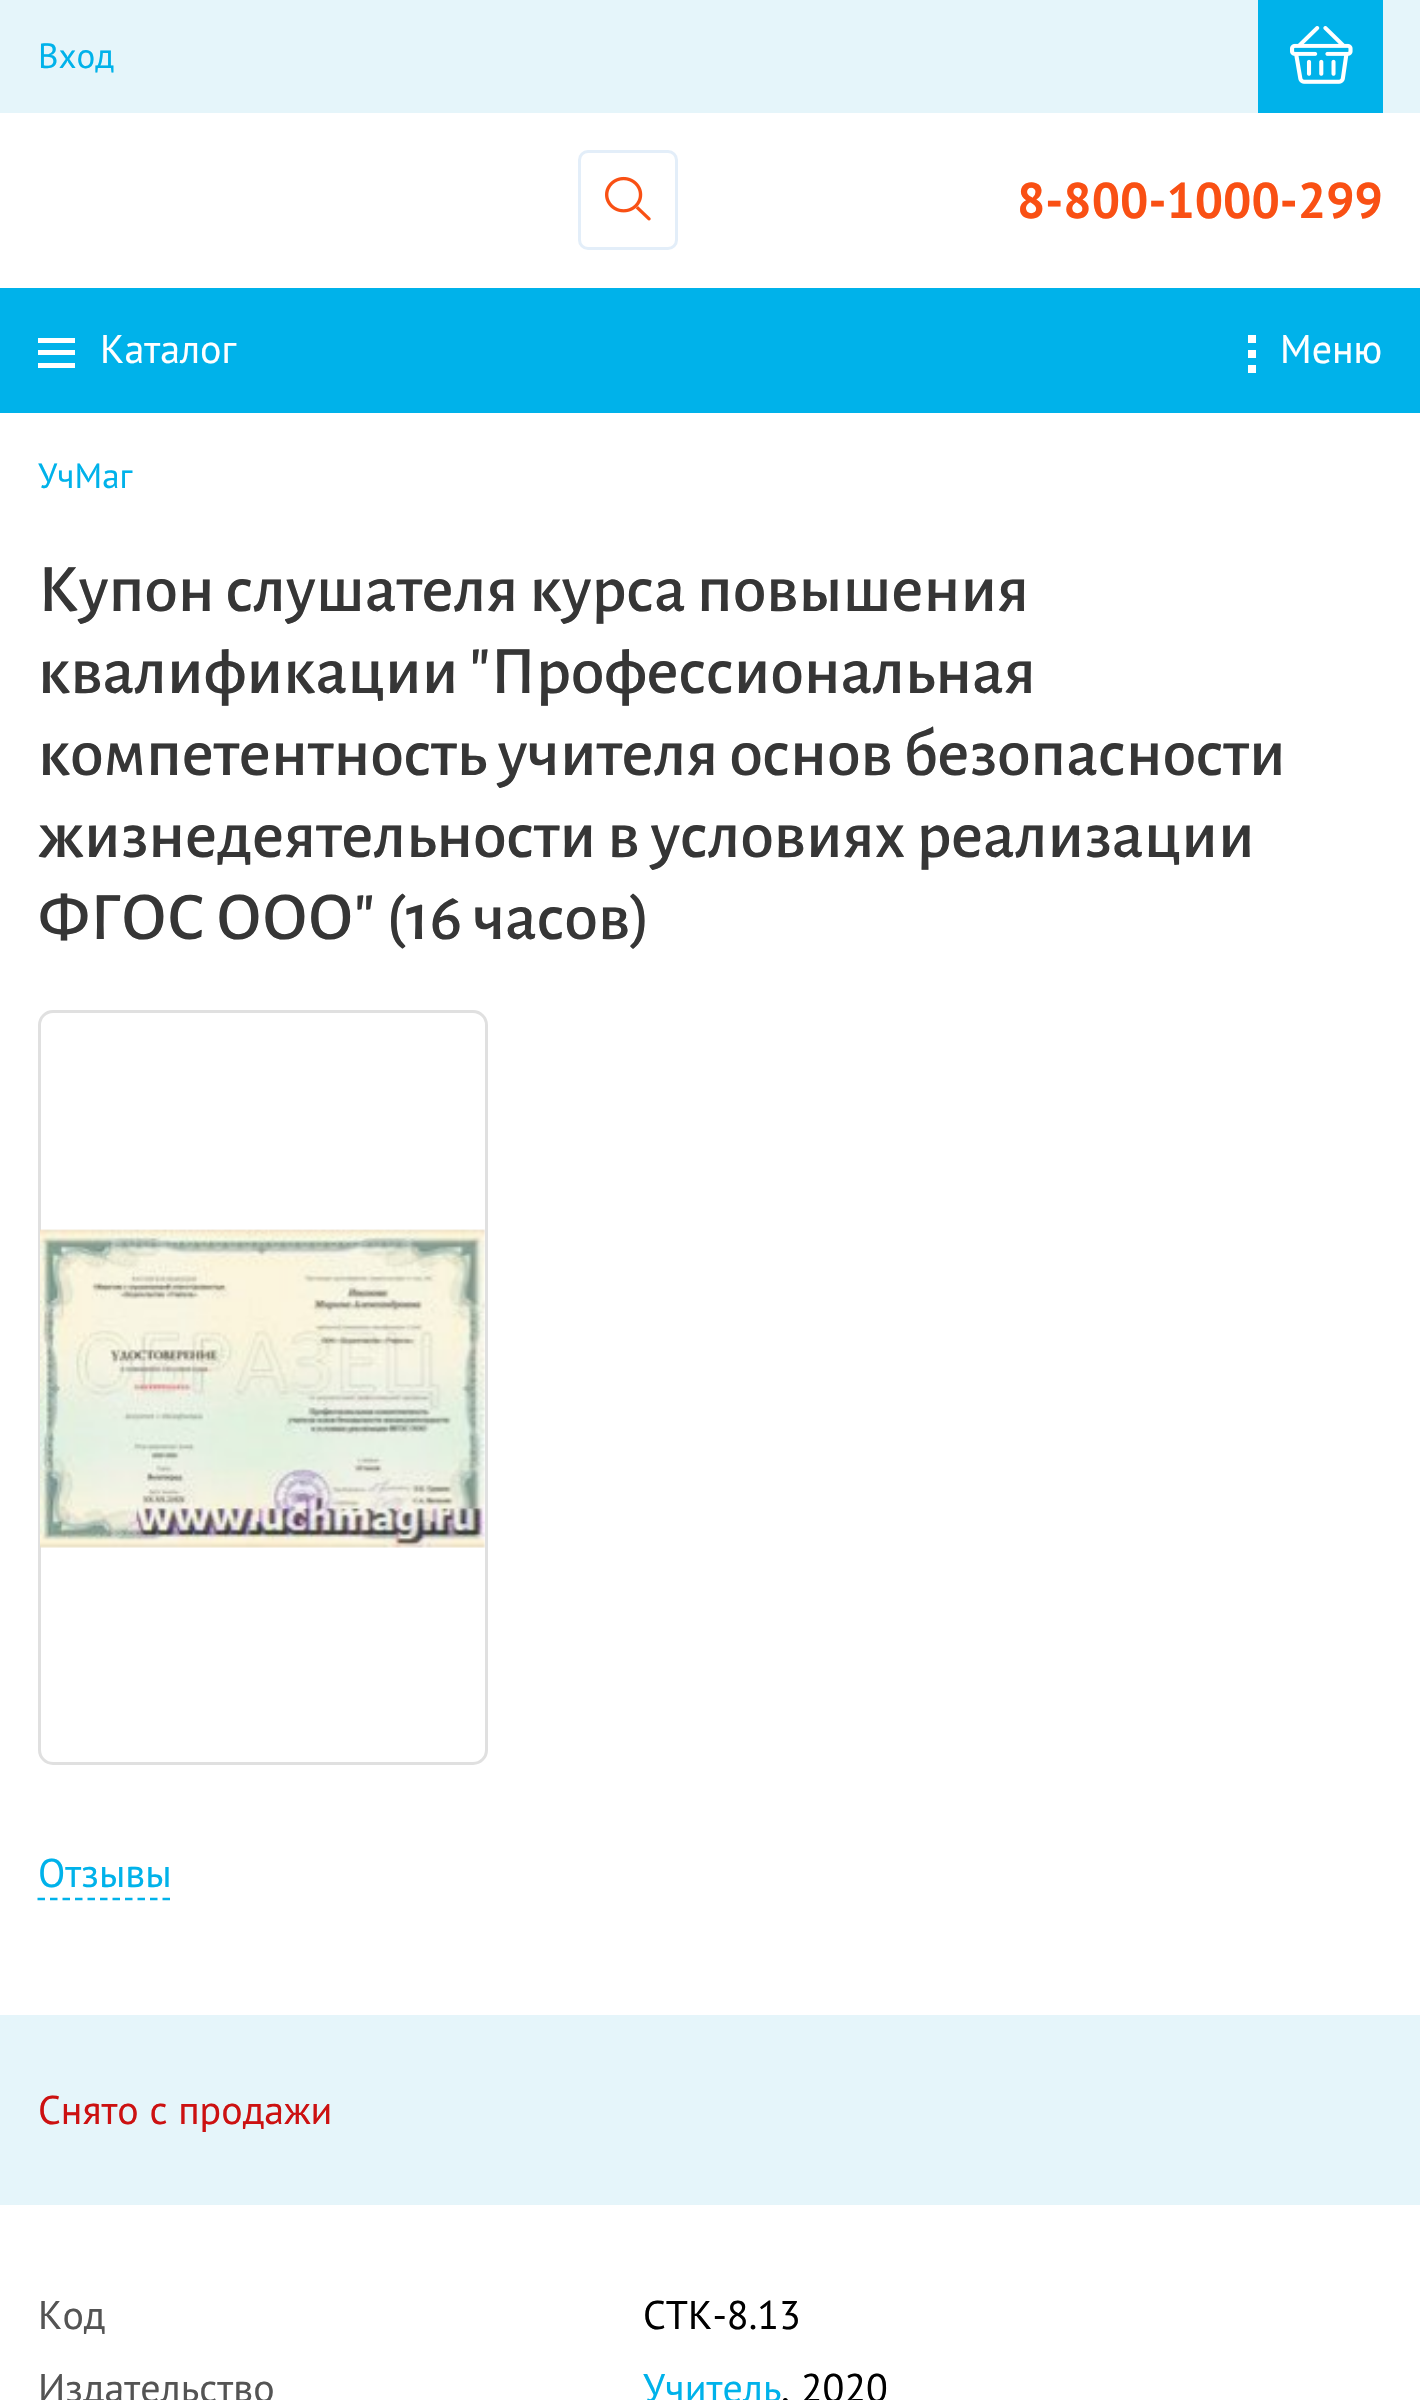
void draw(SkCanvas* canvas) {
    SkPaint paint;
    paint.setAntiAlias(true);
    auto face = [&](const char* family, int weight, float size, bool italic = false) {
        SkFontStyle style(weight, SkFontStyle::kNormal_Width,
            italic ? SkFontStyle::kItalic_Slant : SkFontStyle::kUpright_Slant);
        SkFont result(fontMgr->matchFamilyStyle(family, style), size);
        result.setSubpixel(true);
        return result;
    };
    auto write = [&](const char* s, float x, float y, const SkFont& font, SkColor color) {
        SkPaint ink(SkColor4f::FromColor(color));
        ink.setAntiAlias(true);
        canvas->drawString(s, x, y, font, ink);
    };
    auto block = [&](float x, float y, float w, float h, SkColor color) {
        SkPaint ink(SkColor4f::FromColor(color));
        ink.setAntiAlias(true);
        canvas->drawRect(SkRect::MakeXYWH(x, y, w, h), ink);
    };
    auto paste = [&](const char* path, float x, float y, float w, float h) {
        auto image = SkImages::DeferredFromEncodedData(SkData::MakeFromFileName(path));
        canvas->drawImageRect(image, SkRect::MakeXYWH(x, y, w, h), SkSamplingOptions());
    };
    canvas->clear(SK_ColorWHITE);
    block(0, 0, 1420, 113, SkColorSetRGB(229, 245, 250));
    auto kFont1 = face("PT Sans", 400, 35);
    write("Вход", 38, 68, kFont1, SkColorSetRGB(0, 178, 234));
    block(1258, 0, 125, 113, SkColorSetRGB(0, 178, 234));
    paste("pic1.png", 1290, 26, 63, 58);
    paint.setStyle(SkPaint::kStroke_Style);
    paint.setStrokeWidth(3);
    paint.setColor(SkColorSetRGB(227, 238, 249));
    canvas->drawRoundRect(SkRect::MakeXYWH(579.5f, 151.5f, 97, 97), 8.5f, 8.5f, paint);
    paste("pic2.png", 605, 176, 46, 45);
    auto kFont2 = face("PT Sans", 700, 50);
    write("8-800-1000-299", 1017, 218, kFont2, SkColorSetRGB(249, 80, 20));
    block(0, 288, 1420, 125, SkColorSetRGB(0, 178, 234));
    block(38, 338, 37, 5, SK_ColorWHITE);
    block(38, 350, 37, 5, SK_ColorWHITE);
    block(38, 363, 37, 5, SK_ColorWHITE);
    auto kFont3 = face("PT Sans", 400, 40);
    write("Каталог", 100, 363, kFont3, SK_ColorWHITE);
    block(1248, 335, 8, 8, SK_ColorWHITE);
    block(1248, 350, 8, 8, SK_ColorWHITE);
    block(1248, 365, 8, 8, SK_ColorWHITE);
    write("Меню", 1280, 363, kFont3, SK_ColorWHITE);
    write("УчМаг", 38, 488, kFont1, SkColorSetRGB(0, 178, 234));
    auto kFont4 = face("Alegreya Sans", 500, 68.3f);
    write("Купон слушателя курса повышения", 38, 611, kFont4, SkColorSetRGB(54, 54, 54));
    write("квалификации \"Профессиональная", 38, 693, kFont4, SkColorSetRGB(54, 54, 54));
    write("компетентность учителя основ безопасности", 38, 775, kFont4, SkColorSetRGB(54, 54, 54));
    write("жизнедеятельности в условиях реализации", 38, 857, kFont4, SkColorSetRGB(54, 54, 54));
    write("ФГОС ООО\" (16 часов)", 38, 939, kFont4, SkColorSetRGB(54, 54, 54));
    paint.setColor(SkColorSetRGB(224, 224, 224));
    canvas->drawRoundRect(SkRect::MakeXYWH(39.5f, 1011.5f, 447, 752), 13.5f, 13.5f, paint);
    paste("pic3.png", 40, 1229, 445, 319);
    write("Отзывы", 38, 1887, kFont3, SkColorSetRGB(0, 178, 234));
    paint.setStrokeWidth(2.5f);
    paint.setColor(SkColorSetRGB(0, 178, 234));
    paint.setPathEffect(SkDashPathEffect::Make({{7.5f, 5}}, 0));
    canvas->drawPath(SkPathBuilder().moveTo(37.5f, 1899).lineTo(170, 1899).detach(), paint);
    paint.setPathEffect(nullptr);
    block(0, 2015, 1420, 190, SkColorSetRGB(229, 245, 250));
    write("Снято с продажи", 38, 2124, kFont3, SkColorSetRGB(204, 17, 17));
    write("Код", 38, 2329, kFont3, SkColorSetRGB(84, 84, 84));
    write("СТК-8.13", 643, 2329, kFont3, SK_ColorBLACK);
    write("Издательство", 38, 2402, kFont3, SkColorSetRGB(84, 84, 84));
    write("Учитель", 643, 2402, kFont3, SkColorSetRGB(0, 178, 234));
    write(", 2020", 781, 2402, kFont3, SK_ColorBLACK);
}
